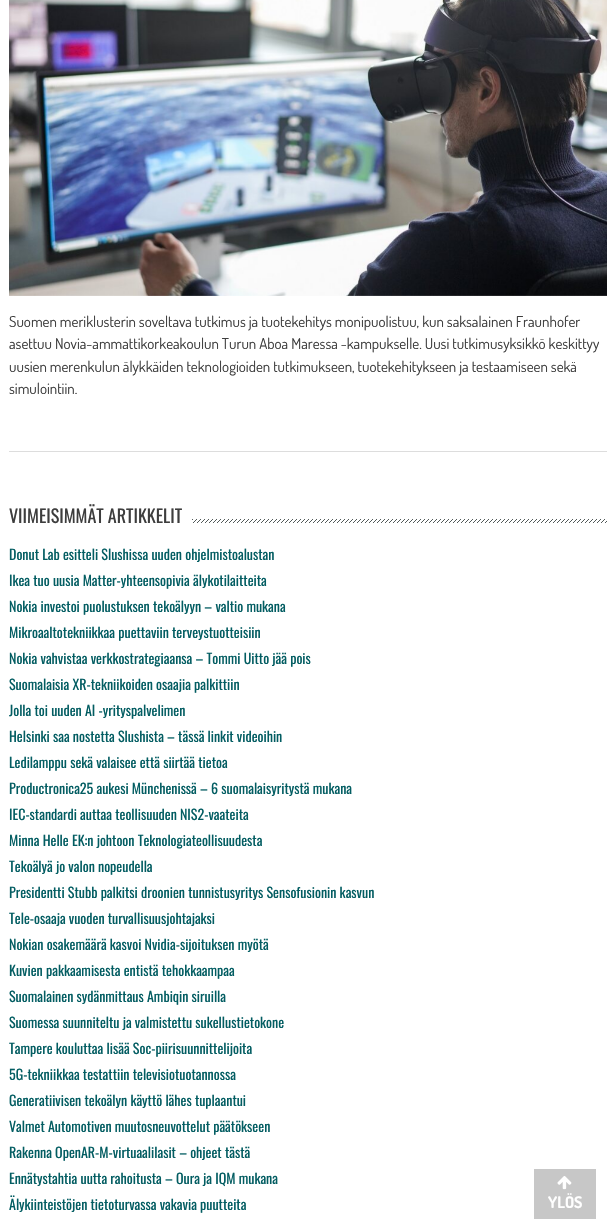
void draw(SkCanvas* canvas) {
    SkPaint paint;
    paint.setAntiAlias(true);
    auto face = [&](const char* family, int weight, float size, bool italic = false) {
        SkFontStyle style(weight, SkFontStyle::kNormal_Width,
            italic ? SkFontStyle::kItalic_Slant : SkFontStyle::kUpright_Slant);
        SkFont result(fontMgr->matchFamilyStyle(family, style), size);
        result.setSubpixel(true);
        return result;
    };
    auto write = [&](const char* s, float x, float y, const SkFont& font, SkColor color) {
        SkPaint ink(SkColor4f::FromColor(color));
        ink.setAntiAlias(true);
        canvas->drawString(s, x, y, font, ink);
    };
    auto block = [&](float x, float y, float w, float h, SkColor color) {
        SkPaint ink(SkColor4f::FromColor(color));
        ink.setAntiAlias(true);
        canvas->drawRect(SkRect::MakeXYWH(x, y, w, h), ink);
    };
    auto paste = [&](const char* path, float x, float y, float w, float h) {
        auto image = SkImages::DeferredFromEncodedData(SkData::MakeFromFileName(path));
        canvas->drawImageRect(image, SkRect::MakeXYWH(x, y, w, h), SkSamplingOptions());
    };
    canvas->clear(SK_ColorWHITE);
    block(9, 451, 598, 1, SkColorSetRGB(221, 221, 221));
    paste("pic1.png", 9, 0, 598, 296);
    auto kFont1 = face("Dosis", 400, 15);
    write("Suomen meriklusterin soveltava tutkimus ja tuotekehitys monipuolistuu, kun saksalainen Fraunhofer", 9, 327, kFont1, SkColorSetRGB(61, 61, 61));
    write("asettuu Novia-ammattikorkeakoulun Turun Aboa Maressa -kampukselle. Uusi tutkimusyksikkö keskittyy", 9, 349, kFont1, SkColorSetRGB(61, 61, 61));
    write("uusien merenkulun älykkäiden teknologioiden tutkimukseen, tuotekehitykseen ja testaamiseen sekä", 9, 372, kFont1, SkColorSetRGB(61, 61, 61));
    write("simulointiin.", 9, 394, kFont1, SkColorSetRGB(61, 61, 61));
    paste("pic2.png", 192, 519, 415, 4);
    auto kFont2 = face("Oswald", 400, 18);
    write("VIIMEISIMMÄT ARTIKKELIT", 9, 523, kFont2, SkColorSetRGB(61, 61, 61));
    auto kFont3 = face("Oswald", 400, 14);
    write("Donut Lab esitteli Slushissa uuden ohjelmistoalustan", 9, 560, kFont3, SkColorSetRGB(3, 93, 98));
    write("Ikea tuo uusia Matter-yhteensopivia älykotilaitteita", 9, 586, kFont3, SkColorSetRGB(3, 93, 98));
    write("Nokia investoi puolustuksen tekoälyyn – valtio mukana", 9, 612, kFont3, SkColorSetRGB(3, 93, 98));
    write("Mikroaaltotekniikkaa puettaviin terveystuotteisiin", 9, 638, kFont3, SkColorSetRGB(3, 93, 98));
    write("Nokia vahvistaa verkkostrategiaansa – Tommi Uitto jää pois", 9, 664, kFont3, SkColorSetRGB(3, 93, 98));
    write("Suomalaisia XR-tekniikoiden osaajia palkittiin", 9, 690, kFont3, SkColorSetRGB(3, 93, 98));
    write("Jolla toi uuden AI -yrityspalvelimen", 9, 716, kFont3, SkColorSetRGB(3, 93, 98));
    write("Helsinki saa nostetta Slushista – tässä linkit videoihin", 9, 742, kFont3, SkColorSetRGB(3, 93, 98));
    write("Ledilamppu sekä valaisee että siirtää tietoa", 9, 768, kFont3, SkColorSetRGB(3, 93, 98));
    write("Productronica25 aukesi Münchenissä – 6 suomalaisyritystä mukana", 9, 794, kFont3, SkColorSetRGB(3, 93, 98));
    write("IEC-standardi auttaa teollisuuden NIS2-vaateita", 9, 820, kFont3, SkColorSetRGB(3, 93, 98));
    write("Minna Helle EK:n johtoon Teknologiateollisuudesta", 9, 846, kFont3, SkColorSetRGB(3, 93, 98));
    write("Tekoälyä jo valon nopeudella", 9, 872, kFont3, SkColorSetRGB(3, 93, 98));
    write("Presidentti Stubb palkitsi droonien tunnistusyritys Sensofusionin kasvun", 9, 898, kFont3, SkColorSetRGB(3, 93, 98));
    write("Tele-osaaja vuoden turvallisuusjohtajaksi", 9, 924, kFont3, SkColorSetRGB(3, 93, 98));
    write("Nokian osakemäärä kasvoi Nvidia-sijoituksen myötä", 9, 950, kFont3, SkColorSetRGB(3, 93, 98));
    write("Kuvien pakkaamisesta entistä tehokkaampaa", 9, 976, kFont3, SkColorSetRGB(3, 93, 98));
    write("Suomalainen sydänmittaus Ambiqin siruilla", 9, 1002, kFont3, SkColorSetRGB(3, 93, 98));
    write("Suomessa suunniteltu ja valmistettu sukellustietokone", 9, 1028, kFont3, SkColorSetRGB(3, 93, 98));
    write("Tampere kouluttaa lisää Soc-piirisuunnittelijoita", 9, 1054, kFont3, SkColorSetRGB(3, 93, 98));
    write("5G-tekniikkaa testattiin televisiotuotannossa", 9, 1080, kFont3, SkColorSetRGB(3, 93, 98));
    write("Generatiivisen tekoälyn käyttö lähes tuplaantui", 9, 1106, kFont3, SkColorSetRGB(3, 93, 98));
    write("Valmet Automotiven muutosneuvottelut päätökseen", 9, 1132, kFont3, SkColorSetRGB(3, 93, 98));
    write("Rakenna OpenAR-M-virtuaalilasit – ohjeet tästä", 9, 1158, kFont3, SkColorSetRGB(3, 93, 98));
    write("Ennätystahtia uutta rahoitusta – Oura ja IQM mukana", 9, 1184, kFont3, SkColorSetRGB(3, 93, 98));
    write("Älykiinteistöjen tietoturvassa vakavia puutteita", 9, 1210, kFont3, SkColorSetRGB(3, 93, 98));
    block(534, 1169, 62, 50, SkColorSetRGB(199, 199, 199));
    paste("pic3.png", 557, 1176, 15, 14);
    auto kFont4 = face("Dosis", 700, 16);
    write("YLÖS", 548, 1208, kFont4, SK_ColorWHITE);
}
